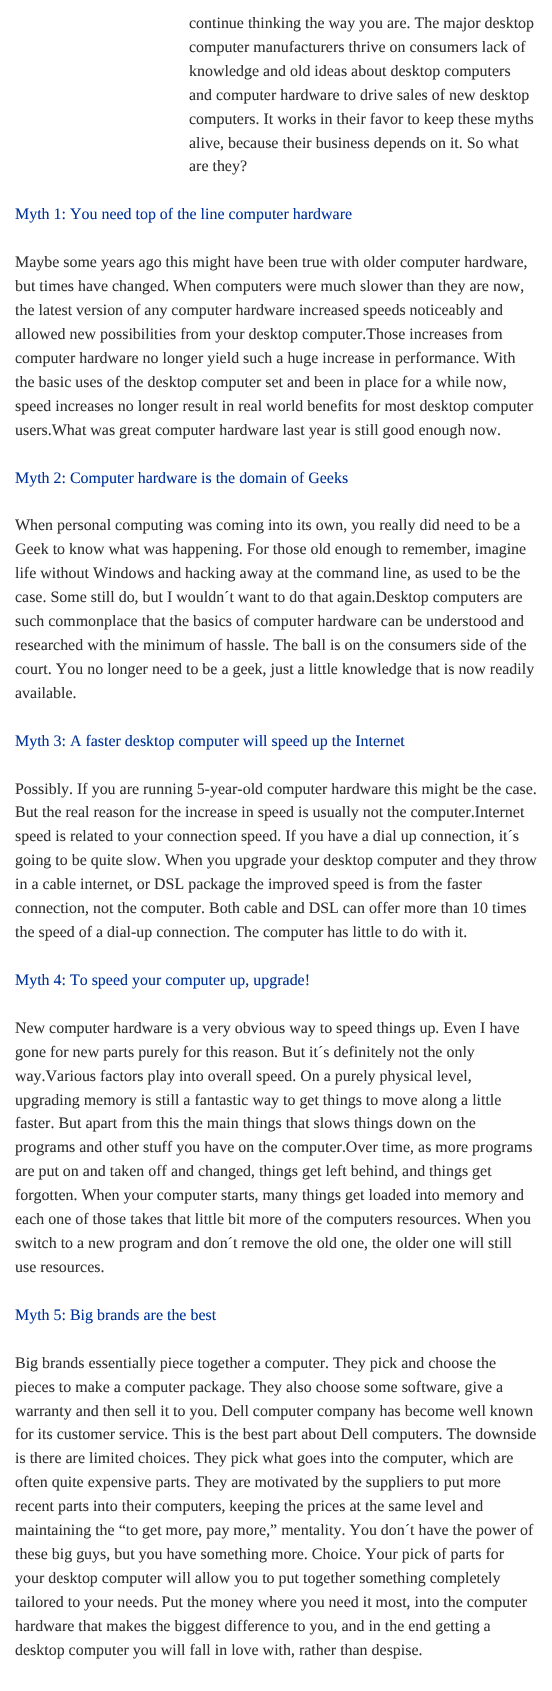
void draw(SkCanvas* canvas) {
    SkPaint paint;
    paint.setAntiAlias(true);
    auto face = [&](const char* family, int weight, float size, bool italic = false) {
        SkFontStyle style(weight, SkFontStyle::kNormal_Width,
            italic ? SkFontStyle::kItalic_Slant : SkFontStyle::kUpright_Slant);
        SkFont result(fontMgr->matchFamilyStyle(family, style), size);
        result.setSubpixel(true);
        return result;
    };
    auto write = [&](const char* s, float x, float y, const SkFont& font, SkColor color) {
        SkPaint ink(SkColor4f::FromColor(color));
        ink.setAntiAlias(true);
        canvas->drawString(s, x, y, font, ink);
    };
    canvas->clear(SK_ColorWHITE);
    auto kFont1 = face("Liberation Serif", 400, 15.95f);
    write("continue thinking the way you are. The major desktop", 189, 28, kFont1, SkColorSetRGB(51, 51, 51));
    write("computer manufacturers thrive on consumers lack of", 189, 52, kFont1, SkColorSetRGB(51, 51, 51));
    write("knowledge and old ideas about desktop computers", 189, 76, kFont1, SkColorSetRGB(51, 51, 51));
    write("and computer hardware to drive sales of new desktop", 189, 100, kFont1, SkColorSetRGB(51, 51, 51));
    write("computers. It works in their favor to keep these myths", 189, 124, kFont1, SkColorSetRGB(51, 51, 51));
    write("alive, because their business depends on it. So what", 189, 148, kFont1, SkColorSetRGB(51, 51, 51));
    write("are they?", 189, 171, kFont1, SkColorSetRGB(51, 51, 51));
    write("Myth 1: You need top of the line computer hardware", 15, 219, kFont1, SkColorSetRGB(0, 51, 153));
    write("Maybe some years ago this might have been true with older computer hardware,", 15, 267, kFont1, SkColorSetRGB(51, 51, 51));
    write("but times have changed. When computers were much slower than they are now,", 15, 291, kFont1, SkColorSetRGB(51, 51, 51));
    write("the latest version of any computer hardware increased speeds noticeably and", 15, 315, kFont1, SkColorSetRGB(51, 51, 51));
    write("allowed new possibilities from your desktop computer.Those increases from", 15, 339, kFont1, SkColorSetRGB(51, 51, 51));
    write("computer hardware no longer yield such a huge increase in performance. With", 15, 363, kFont1, SkColorSetRGB(51, 51, 51));
    write("the basic uses of the desktop computer set and been in place for a while now,", 15, 387, kFont1, SkColorSetRGB(51, 51, 51));
    write("speed increases no longer result in real world benefits for most desktop computer", 15, 411, kFont1, SkColorSetRGB(51, 51, 51));
    write("users.What was great computer hardware last year is still good enough now.", 15, 435, kFont1, SkColorSetRGB(51, 51, 51));
    write("Myth 2: Computer hardware is the domain of Geeks", 15, 483, kFont1, SkColorSetRGB(0, 51, 153));
    write("When personal computing was coming into its own, you really did need to be a", 15, 530, kFont1, SkColorSetRGB(51, 51, 51));
    write("Geek to know what was happening. For those old enough to remember, imagine", 15, 554, kFont1, SkColorSetRGB(51, 51, 51));
    write("life without Windows and hacking away at the command line, as used to be the", 15, 578, kFont1, SkColorSetRGB(51, 51, 51));
    write("case. Some still do, but I wouldn´t want to do that again.Desktop computers are", 15, 602, kFont1, SkColorSetRGB(51, 51, 51));
    write("such commonplace that the basics of computer hardware can be understood and", 15, 626, kFont1, SkColorSetRGB(51, 51, 51));
    write("researched with the minimum of hassle. The ball is on the consumers side of the", 15, 650, kFont1, SkColorSetRGB(51, 51, 51));
    write("court. You no longer need to be a geek, just a little knowledge that is now readily", 15, 674, kFont1, SkColorSetRGB(51, 51, 51));
    write("available.", 15, 698, kFont1, SkColorSetRGB(51, 51, 51));
    write("Myth 3: A faster desktop computer will speed up the Internet", 15, 746, kFont1, SkColorSetRGB(0, 51, 153));
    write("Possibly. If you are running 5-year-old computer hardware this might be the case.", 15, 794, kFont1, SkColorSetRGB(51, 51, 51));
    write("But the real reason for the increase in speed is usually not the computer.Internet", 15, 817, kFont1, SkColorSetRGB(51, 51, 51));
    write("speed is related to your connection speed. If you have a dial up connection, it´s", 15, 841, kFont1, SkColorSetRGB(51, 51, 51));
    write("going to be quite slow. When you upgrade your desktop computer and they throw", 15, 865, kFont1, SkColorSetRGB(51, 51, 51));
    write("in a cable internet, or DSL package the improved speed is from the faster", 15, 889, kFont1, SkColorSetRGB(51, 51, 51));
    write("connection, not the computer. Both cable and DSL can offer more than 10 times", 15, 913, kFont1, SkColorSetRGB(51, 51, 51));
    write("the speed of a dial-up connection. The computer has little to do with it.", 15, 937, kFont1, SkColorSetRGB(51, 51, 51));
    write("Myth 4: To speed your computer up, upgrade!", 15, 985, kFont1, SkColorSetRGB(0, 51, 153));
    write("New computer hardware is a very obvious way to speed things up. Even I have", 15, 1033, kFont1, SkColorSetRGB(51, 51, 51));
    write("gone for new parts purely for this reason. But it´s definitely not the only", 15, 1057, kFont1, SkColorSetRGB(51, 51, 51));
    write("way.Various factors play into overall speed. On a purely physical level,", 15, 1081, kFont1, SkColorSetRGB(51, 51, 51));
    write("upgrading memory is still a fantastic way to get things to move along a little", 15, 1105, kFont1, SkColorSetRGB(51, 51, 51));
    write("faster. But apart from this the main things that slows things down on the", 15, 1128, kFont1, SkColorSetRGB(51, 51, 51));
    write("programs and other stuff you have on the computer.Over time, as more programs", 15, 1152, kFont1, SkColorSetRGB(51, 51, 51));
    write("are put on and taken off and changed, things get left behind, and things get", 15, 1176, kFont1, SkColorSetRGB(51, 51, 51));
    write("forgotten. When your computer starts, many things get loaded into memory and", 15, 1200, kFont1, SkColorSetRGB(51, 51, 51));
    write("each one of those takes that little bit more of the computers resources. When you", 15, 1224, kFont1, SkColorSetRGB(51, 51, 51));
    write("switch to a new program and don´t remove the old one, the older one will still", 15, 1248, kFont1, SkColorSetRGB(51, 51, 51));
    write("use resources.", 15, 1272, kFont1, SkColorSetRGB(51, 51, 51));
    write("Myth 5: Big brands are the best", 15, 1320, kFont1, SkColorSetRGB(0, 51, 153));
    write("Big brands essentially piece together a computer. They pick and choose the", 15, 1368, kFont1, SkColorSetRGB(51, 51, 51));
    write("pieces to make a computer package. They also choose some software, give a", 15, 1392, kFont1, SkColorSetRGB(51, 51, 51));
    write("warranty and then sell it to you. Dell computer company has become well known", 15, 1416, kFont1, SkColorSetRGB(51, 51, 51));
    write("for its customer service. This is the best part about Dell computers. The downside", 15, 1439, kFont1, SkColorSetRGB(51, 51, 51));
    write("is there are limited choices. They pick what goes into the computer, which are", 15, 1463, kFont1, SkColorSetRGB(51, 51, 51));
    write("often quite expensive parts. They are motivated by the suppliers to put more", 15, 1487, kFont1, SkColorSetRGB(51, 51, 51));
    write("recent parts into their computers, keeping the prices at the same level and", 15, 1511, kFont1, SkColorSetRGB(51, 51, 51));
    write("maintaining the “to get more, pay more,” mentality. You don´t have the power of", 15, 1535, kFont1, SkColorSetRGB(51, 51, 51));
    write("these big guys, but you have something more. Choice. Your pick of parts for", 15, 1559, kFont1, SkColorSetRGB(51, 51, 51));
    write("your desktop computer will allow you to put together something completely", 15, 1583, kFont1, SkColorSetRGB(51, 51, 51));
    write("tailored to your needs. Put the money where you need it most, into the computer", 15, 1607, kFont1, SkColorSetRGB(51, 51, 51));
    write("hardware that makes the biggest difference to you, and in the end getting a", 15, 1631, kFont1, SkColorSetRGB(51, 51, 51));
    write("desktop computer you will fall in love with, rather than despise.", 15, 1655, kFont1, SkColorSetRGB(51, 51, 51));
}
